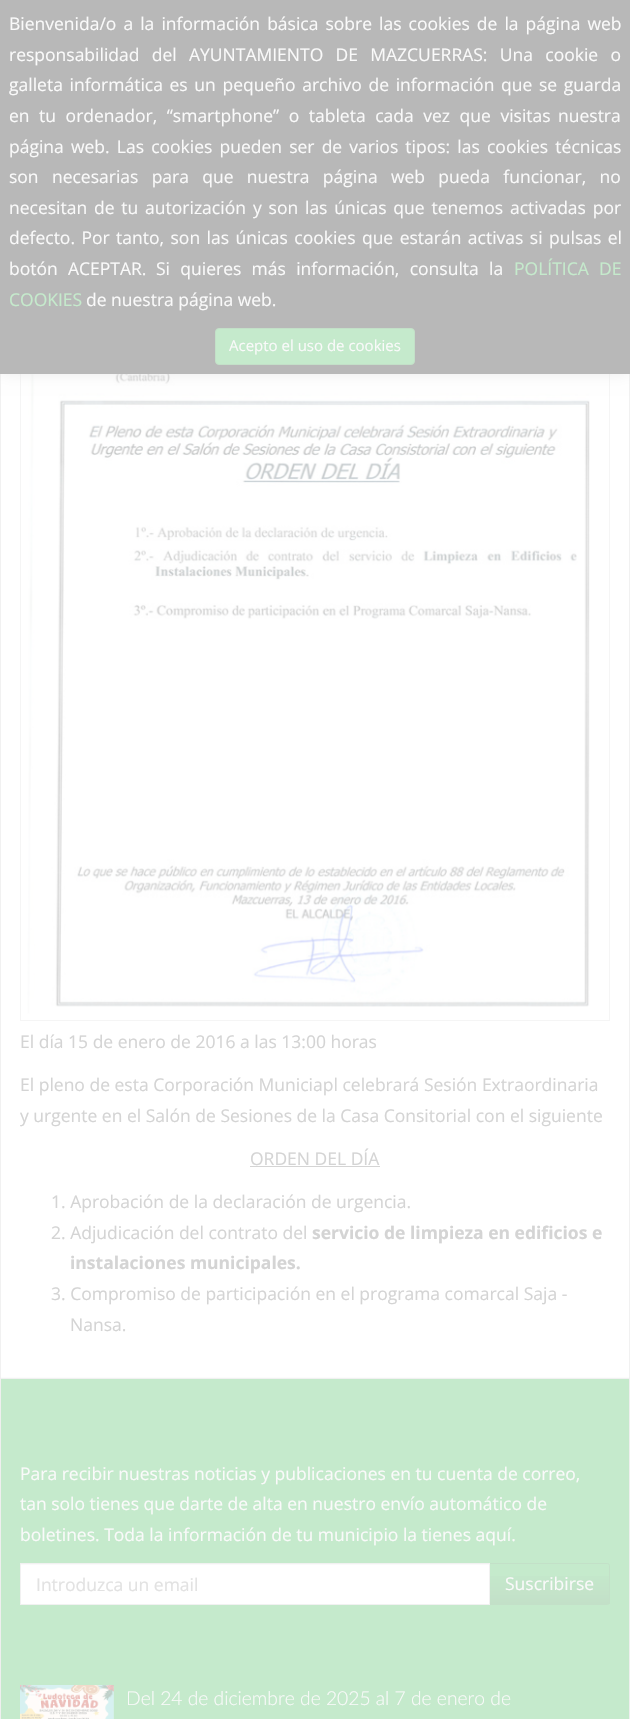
void draw(SkCanvas* canvas) {
    SkPaint paint;
    paint.setAntiAlias(true);
    auto face = [&](const char* family, int weight, float size, bool italic = false) {
        SkFontStyle style(weight, SkFontStyle::kNormal_Width,
            italic ? SkFontStyle::kItalic_Slant : SkFontStyle::kUpright_Slant);
        SkFont result(fontMgr->matchFamilyStyle(family, style), size);
        result.setSubpixel(true);
        return result;
    };
    auto write = [&](const char* s, float x, float y, const SkFont& font, SkColor color) {
        SkPaint ink(SkColor4f::FromColor(color));
        ink.setAntiAlias(true);
        canvas->drawString(s, x, y, font, ink);
    };
    auto writeSpaced = [&](const char* s, float x, float y, const SkFont& font, const SkPaint& ink, float letter, float word) {
        std::vector<SkGlyphID> glyphs(font.countText(s, strlen(s), SkTextEncoding::kUTF8));
        std::vector<float> xs(glyphs.size());
        font.textToGlyphs(s, strlen(s), SkTextEncoding::kUTF8, glyphs);
        font.getXPos(glyphs, xs, x);
        float extra = 0;
        for (size_t i = 0; i < glyphs.size(); i++) {
            xs[i] += extra;
            extra += letter + word * (glyphs[i] == font.unicharToGlyph(' '));
        }
        canvas->drawTextBlob(SkTextBlob::MakeFromPosHGlyphs(glyphs, xs, y, font), 0, 0, ink);
    };
    auto block = [&](float x, float y, float w, float h, SkColor color) {
        SkPaint ink(SkColor4f::FromColor(color));
        ink.setAntiAlias(true);
        canvas->drawRect(SkRect::MakeXYWH(x, y, w, h), ink);
    };
    auto paste = [&](const char* path, float x, float y, float w, float h) {
        auto image = SkImages::DeferredFromEncodedData(SkData::MakeFromFileName(path));
        canvas->drawImageRect(image, SkRect::MakeXYWH(x, y, w, h), SkSamplingOptions());
    };
    canvas->clear(SK_ColorWHITE);
    block(629, 374, 1, 1345, SkColorSetRGB(241, 241, 241));
    block(0, 374, 1, 1345, SkColorSetRGB(241, 241, 241));
    paint.setStyle(SkPaint::kStroke_Style);
    paint.setStrokeWidth(1);
    paint.setColor(SkColorSetRGB(245, 245, 245));
    canvas->drawRect(SkRect::MakeXYWH(20.5f, 193.5f, 589, 827), paint);
    paste("pic1.png", 27, 374, 563, 640);
    paint.setStyle(SkPaint::kFill_Style);
    paint.setColor(SkColorSetRGB(219, 219, 219));
    paint.setMaskFilter(SkMaskFilter::MakeBlur(kNormal_SkBlurStyle, 9.5f));
    canvas->drawRect(SkRect::MakeXYWH(0, -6, 630, 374), paint);
    paint.setMaskFilter(nullptr);
    block(0, 0, 630, 374, SkColorSetRGB(184, 184, 184));
    auto kFont1 = face("Open Sans", 400, 17.5f);
    paint.setColor(SkColorSetRGB(250, 250, 250));
    writeSpaced("Bienvenida/o a la información básica sobre las cookies de la página web", 9, 30, kFont1, paint, 0, 2.5f);
    writeSpaced("responsabilidad del", 9, 61, kFont1, paint, 0, 7.75f);
    writeSpaced("AYUNTAMIENTO DE MAZCUERRAS: Una cookie o", 189, 61, kFont1, paint, 0, 7.75f);
    writeSpaced("galleta informática es un pequeño archivo de información que se guarda", 9, 91, kFont1, paint, 0, 2.1f);
    writeSpaced("en tu ordenador, “smartphone” o tableta cada vez que visitas", 9, 122, kFont1, paint, 0, 5);
    write("nuestra", 558, 122, kFont1, SkColorSetRGB(250, 250, 250));
    writeSpaced("página web. Las cookies pueden ser de varios tipos: las cookies técnicas", 9, 153, kFont1, paint, 0, 2.6f);
    writeSpaced("son necesarias para que nuestra página web pueda funcionar, no", 9, 183, kFont1, paint, 0, 8.75f);
    writeSpaced("necesitan de tu autorización", 9, 214, kFont1, paint, 0, 2.25f);
    writeSpaced("y son las únicas que tenemos activadas por", 253, 214, kFont1, paint, 0, 2.25f);
    writeSpaced("defecto. Por tanto, son las únicas cookies que estarán activas si pulsas el", 9, 244, kFont1, paint, 0, 1.9f);
    writeSpaced("botón ACEPTAR.", 9, 275, kFont1, paint, 0, 5.75f);
    writeSpaced("Si quieres más información, consulta la", 156, 275, kFont1, paint, 0, 5.75f);
    paint.setColor(SkColorSetRGB(197, 234, 204));
    writeSpaced("POLÍTICA DE", 514, 275, kFont1, paint, 0, 5.75f);
    write("COOKIES", 9, 306, kFont1, SkColorSetRGB(197, 234, 204));
    write("de nuestra página web.", 86, 306, kFont1, SkColorSetRGB(250, 250, 250));
    canvas->drawRoundRect(SkRect::MakeXYWH(215.5f, 328.5f, 199, 36), 3.5f, 3.5f, paint);
    paint.setStyle(SkPaint::kStroke_Style);
    paint.setColor(SkColorSetRGB(195, 224, 200));
    canvas->drawRoundRect(SkRect::MakeXYWH(215.5f, 328.5f, 199, 36), 3.5f, 3.5f, paint);
    auto kFont2 = face("Open Sans", 400, 15);
    write("Acepto el uso de cookies", 229, 351, kFont2, SkColorSetRGB(250, 250, 250));
    write("El día 15 de enero de 2016 a las 13:00 horas", 20, 1048, kFont1, SkColorSetRGB(212, 212, 212));
    write("El pleno de esta Corporación Municiapl celebrará Sesión Extraordinaria", 20, 1091, kFont1, SkColorSetRGB(212, 212, 212));
    write("y urgente en el Salón de Sesiones de la Casa Consitorial con el siguiente", 20, 1122, kFont1, SkColorSetRGB(212, 212, 212));
    write("ORDEN DEL DÍA", 250, 1165, kFont1, SkColorSetRGB(212, 212, 212));
    block(250, 1166, 130, 1, SkColorSetRGB(212, 212, 212));
    write("1. Aprobación de la declaración de urgencia.", 51, 1208, kFont1, SkColorSetRGB(212, 212, 212));
    write("2. Adjudicación del contrato del", 51, 1239, kFont1, SkColorSetRGB(212, 212, 212));
    auto kFont3 = face("Open Sans", 700, 17.5f);
    write("servicio de limpieza en edificios e", 312, 1239, kFont3, SkColorSetRGB(212, 212, 212));
    write("instalaciones municipales.", 70, 1269, kFont3, SkColorSetRGB(212, 212, 212));
    write("3. Compromiso de participación en el programa comarcal Saja -", 51, 1300, kFont1, SkColorSetRGB(212, 212, 212));
    write("Nansa.", 70, 1331, kFont1, SkColorSetRGB(212, 212, 212));
    paint.setStyle(SkPaint::kFill_Style);
    paint.setColor(SkColorSetARGB(77, 184, 184, 184));
    paint.setMaskFilter(SkMaskFilter::MakeBlur(kNormal_SkBlurStyle, 0.5f));
    canvas->drawRect(SkRect::MakeXYWH(1, 1378, 628, 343), paint);
    paint.setMaskFilter(nullptr);
    block(1, 1379, 628, 340, SkColorSetRGB(197, 234, 204));
    block(1, 1378, 628, 1, SkColorSetRGB(241, 241, 241));
    write("Para recibir nuestras noticias y publicaciones en tu cuenta de correo,", 20, 1480, kFont1, SkColorSetRGB(250, 250, 250));
    write("tan solo tienes que darte de alta en nuestro envío automático de", 20, 1510, kFont1, SkColorSetRGB(250, 250, 250));
    write("boletines. Toda la información de tu municipio la tienes aquí.", 20, 1541, kFont1, SkColorSetRGB(250, 250, 250));
    block(21, 1565, 468, 39, SK_ColorWHITE);
    block(21, 1564, 468, 1, SkColorSetRGB(250, 250, 250));
    {
        const SkColor colors[] = {SkColorSetRGB(197, 234, 204), SkColorSetRGB(195, 224, 200)};
        const float stops[] = {0.05f, 1};
        const SkPoint ends[] = {{549, 1564}, {549, 1604}};
        paint.setShader(SkGradientShader::MakeLinear(ends, colors, stops, 2, SkTileMode::kClamp));
        paint.setAlpha(255);
    }
    canvas->drawRect(SkRect::MakeXYWH(490, 1576, 120, 28), paint);
    paint.setStyle(SkPaint::kStroke_Style);
    paint.setShader(nullptr);
    paint.setColor(SkColorSetRGB(195, 224, 200));
    canvas->drawPath(SkPathBuilder().moveTo(489.5f, 1563.5f).lineTo(607.5f, 1563.5f).cubicTo(608.5f, 1563.5f, 609.5f, 1564.5f, 609.5f, 1565.5f).lineTo(609.5f, 1602.5f).cubicTo(609.5f, 1603.5f, 608.5f, 1604.5f, 607.5f, 1604.5f).lineTo(489.5f, 1604.5f).close().detach(), paint);
    paint.setColor(SkColorSetRGB(241, 241, 241));
    canvas->drawRect(SkRect::MakeXYWH(20.5f, 1563.5f, 469, 41), paint);
    write("Introduzca un email", 36, 1591, kFont1, SkColorSetRGB(226, 226, 226));
    write("Suscribirse", 505, 1590, kFont1, SkColorSetRGB(250, 250, 250));
    paste("pic2.png", 20, 1685, 94, 34);
    auto kFont4 = face("Lato", 300, 19.25f);
    write("Del 24 de diciembre de 2025 al 7 de enero de", 126, 1705, kFont4, SkColorSetRGB(250, 250, 250));
}
